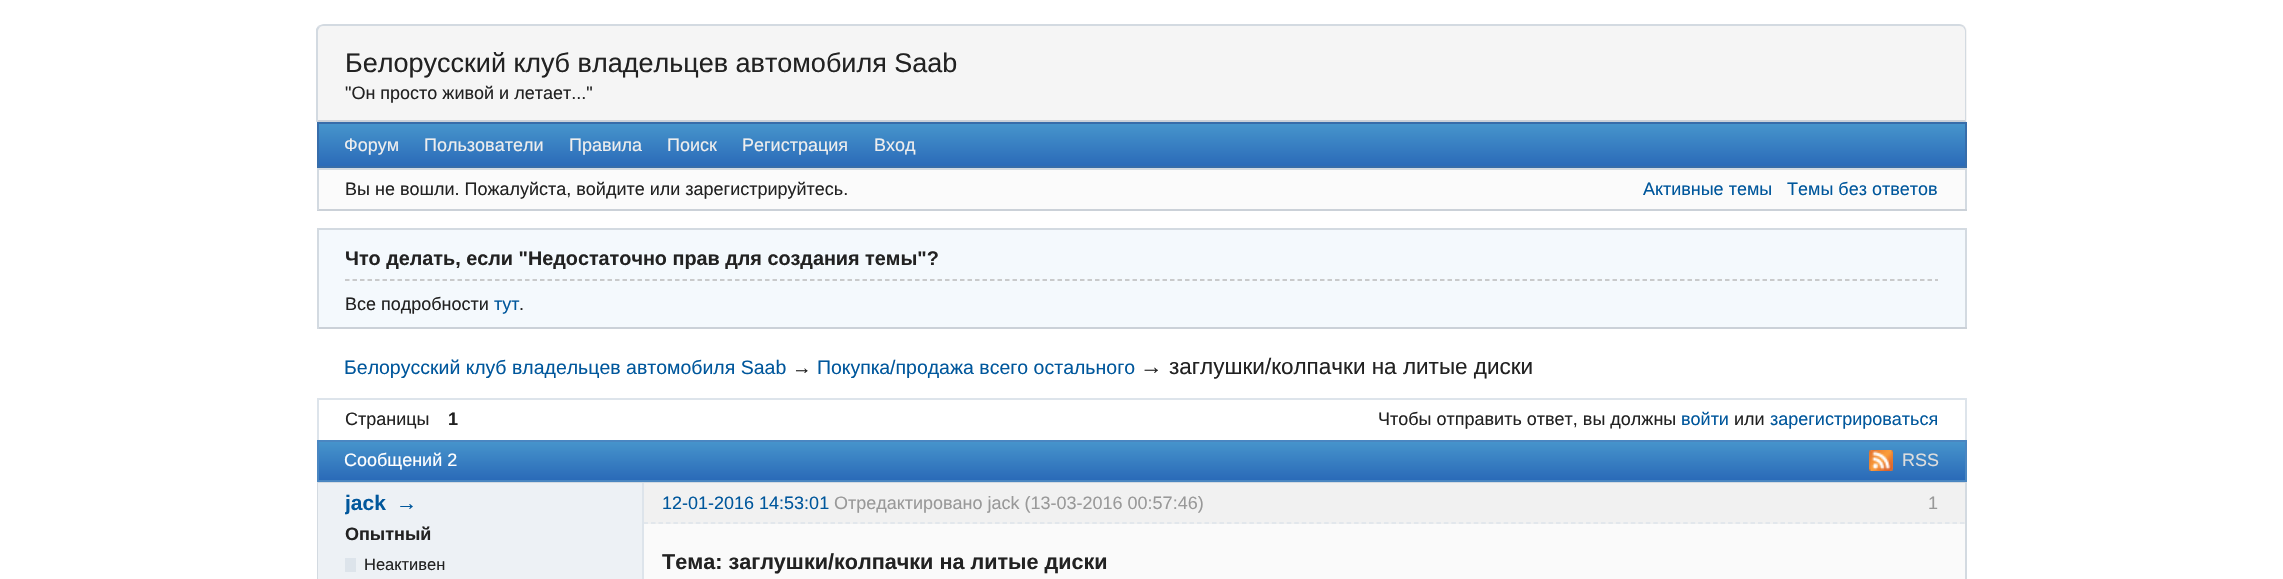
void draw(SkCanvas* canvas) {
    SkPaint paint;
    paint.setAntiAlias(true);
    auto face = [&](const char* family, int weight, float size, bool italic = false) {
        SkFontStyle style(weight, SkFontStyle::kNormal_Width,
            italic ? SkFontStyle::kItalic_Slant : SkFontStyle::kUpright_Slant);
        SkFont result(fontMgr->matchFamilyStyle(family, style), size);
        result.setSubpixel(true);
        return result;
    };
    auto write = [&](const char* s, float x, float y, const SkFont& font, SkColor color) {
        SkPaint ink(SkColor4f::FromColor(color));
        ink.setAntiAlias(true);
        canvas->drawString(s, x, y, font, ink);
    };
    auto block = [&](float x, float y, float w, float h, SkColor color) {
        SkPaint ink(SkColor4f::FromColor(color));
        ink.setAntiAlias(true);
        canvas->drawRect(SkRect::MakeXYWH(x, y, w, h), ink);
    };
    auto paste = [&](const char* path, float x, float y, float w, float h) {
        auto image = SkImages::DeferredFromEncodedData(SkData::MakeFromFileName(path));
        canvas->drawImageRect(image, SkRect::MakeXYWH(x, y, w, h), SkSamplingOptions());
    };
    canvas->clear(SK_ColorWHITE);
    paint.setColor(SkColorSetRGB(245, 245, 245));
    canvas->drawPath(SkPathBuilder().moveTo(325, 24).lineTo(1959, 24).cubicTo(1963.5f, 24, 1967, 27.5f, 1967, 32).lineTo(1967, 122).lineTo(317, 122).lineTo(317, 32).cubicTo(317, 27.5f, 320.5f, 24, 325, 24).close().detach(), paint);
    paint.setColor(SkColorSetRGB(211, 218, 225));
    canvas->drawPath(SkPathBuilder().moveTo(324, 24).cubicTo(322, 24, 320, 25, 318, 26).lineTo(320, 27).cubicTo(321, 26, 322, 26, 324, 26).lineTo(1959, 26).cubicTo(1960, 26, 1962, 26, 1963, 27).lineTo(1964, 26).cubicTo(1963, 25, 1961, 24, 1959, 24).close().detach(), paint);
    canvas->drawPath(SkPathBuilder().moveTo(1964, 26).cubicTo(1965, 27, 1966, 29, 1966, 31).lineTo(1966, 121).lineTo(1965, 120).lineTo(1965, 31).cubicTo(1965, 30, 1964, 28, 1963, 27).close().detach(), paint);
    paint.setColor(SkColorSetRGB(203, 209, 216));
    canvas->drawPath(SkPathBuilder().moveTo(1966, 121).lineTo(1966, 122).lineTo(316, 122).lineTo(318, 120).lineTo(1965, 120).close().detach(), paint);
    paint.setColor(SkColorSetRGB(211, 218, 225));
    canvas->drawPath(SkPathBuilder().moveTo(316, 122).lineTo(316, 29).lineTo(318, 26).lineTo(320, 27).cubicTo(319, 28, 318, 30, 318, 31).lineTo(318, 120).close().detach(), paint);
    auto kFont1 = face("Liberation Sans", 400, 27);
    write("Белорусский клуб владельцев автомобиля Saab", 345, 72, kFont1, SkColorSetRGB(34, 34, 34));
    auto kFont2 = face("Liberation Sans", 400, 18);
    write("\"Он просто живой и летает...\"", 345, 99, kFont2, SkColorSetRGB(34, 34, 34));
    {
        const SkColor colors[] = {SkColorSetRGB(42, 106, 184), SkColorSetRGB(71, 149, 204)};
        const float stops[] = {0, 1};
        const SkPoint ends[] = {{1142, 167}, {1142, 123}};
        paint.setShader(SkGradientShader::MakeLinear(ends, colors, stops, 2, SkTileMode::kClamp));
        paint.setAlpha(255);
    }
    canvas->drawRect(SkRect::MakeXYWH(319, 124, 1646, 42), paint);
    paint.setStyle(SkPaint::kStroke_Style);
    paint.setStrokeWidth(2);
    paint.setShader(nullptr);
    paint.setColor(SkColorSetRGB(55, 109, 170));
    canvas->drawRect(SkRect::MakeXYWH(318, 123, 1648, 44), paint);
    write("Форум", 344, 151, kFont2, SkColorSetRGB(238, 238, 238));
    write("Пользователи", 424, 151, kFont2, SkColorSetRGB(238, 238, 238));
    write("Правила", 569, 151, kFont2, SkColorSetRGB(238, 238, 238));
    write("Поиск", 667, 151, kFont2, SkColorSetRGB(238, 238, 238));
    write("Регистрация", 742, 151, kFont2, SkColorSetRGB(238, 238, 238));
    write("Вход", 874, 151, kFont2, SkColorSetRGB(238, 238, 238));
    block(319, 170, 1646, 39, SkColorSetRGB(251, 251, 251));
    block(317, 168, 1650, 2, SkColorSetRGB(211, 218, 225));
    block(1965, 168, 2, 42, SkColorSetRGB(211, 218, 225));
    block(317, 209, 1650, 2, SkColorSetRGB(203, 209, 216));
    block(317, 168, 2, 42, SkColorSetRGB(211, 218, 225));
    write("Вы не вошли. Пожалуйста, войдите или зарегистрируйтесь.", 345, 195, kFont2, SkColorSetRGB(34, 34, 34));
    write("Активные темы", 1643, 195, kFont2, SkColorSetRGB(0, 87, 156));
    write("Темы без ответов", 1787, 195, kFont2, SkColorSetRGB(0, 87, 156));
    block(319, 230, 1646, 97, SkColorSetRGB(244, 249, 253));
    block(317, 228, 1650, 2, SkColorSetRGB(211, 218, 225));
    block(1965, 228, 2, 101, SkColorSetRGB(211, 218, 225));
    block(317, 327, 1650, 2, SkColorSetRGB(203, 209, 216));
    block(317, 228, 2, 101, SkColorSetRGB(211, 218, 225));
    paint.setStrokeWidth(1.5f);
    paint.setColor(SkColorSetRGB(187, 187, 187));
    paint.setPathEffect(SkDashPathEffect::Make({{4.5f, 3}}, 0));
    canvas->drawPath(SkPathBuilder().moveTo(345, 280).lineTo(1938, 280).detach(), paint);
    paint.setPathEffect(nullptr);
    auto kFont3 = face("Liberation Sans", 700, 19.8f);
    write("Что делать, если \"Недостаточно прав для создания темы\"?", 345, 265, kFont3, SkColorSetRGB(34, 34, 34));
    write("Все подробности", 345, 310, kFont2, SkColorSetRGB(34, 34, 34));
    write("тут", 494, 310, kFont2, SkColorSetRGB(0, 87, 156));
    write(".", 519, 310, kFont2, SkColorSetRGB(34, 34, 34));
    auto kFont4 = face("Liberation Sans", 400, 19.5f);
    write("Белорусский клуб владельцев автомобиля Saab", 344, 374, kFont4, SkColorSetRGB(0, 87, 156));
    write("→", 792, 374, kFont4, SkColorSetRGB(34, 34, 34));
    write("Покупка/продажа всего остального", 817, 374, kFont4, SkColorSetRGB(0, 87, 156));
    auto kFont5 = face("Liberation Sans", 400, 22.5f);
    write("→", 1140, 374, kFont5, SkColorSetRGB(34, 34, 34));
    write("заглушки/колпачки на литые диски", 1169, 374, kFont5, SkColorSetRGB(34, 34, 34));
    block(317, 398, 1650, 2, SkColorSetRGB(221, 228, 235));
    block(1965, 398, 2, 42, SkColorSetRGB(221, 228, 235));
    block(317, 398, 2, 42, SkColorSetRGB(221, 228, 235));
    write("Страницы", 345, 425, kFont2, SkColorSetRGB(34, 34, 34));
    auto kFont6 = face("Liberation Sans", 700, 18);
    write("1", 448, 425, kFont6, SkColorSetRGB(34, 34, 34));
    write("Чтобы отправить ответ, вы должны", 1378, 425, kFont2, SkColorSetRGB(34, 34, 34));
    write("войти", 1681, 425, kFont2, SkColorSetRGB(0, 87, 156));
    write("или", 1734, 425, kFont2, SkColorSetRGB(34, 34, 34));
    write("зарегистрироваться", 1770, 425, kFont2, SkColorSetRGB(0, 87, 156));
    paint.setStyle(SkPaint::kFill_Style);
    {
        const SkColor colors[] = {SkColorSetRGB(42, 106, 184), SkColorSetRGB(71, 149, 204)};
        const float stops[] = {0, 1};
        const SkPoint ends[] = {{1142, 480}, {1142, 441}};
        paint.setShader(SkGradientShader::MakeLinear(ends, colors, stops, 2, SkTileMode::kClamp));
        paint.setAlpha(255);
    }
    canvas->drawRect(SkRect::MakeXYWH(319, 442, 1646, 38), paint);
    paint.setStyle(SkPaint::kStroke_Style);
    paint.setStrokeWidth(2);
    paint.setShader(nullptr);
    paint.setColor(SkColorSetRGB(74, 134, 193));
    canvas->drawRect(SkRect::MakeXYWH(318, 441, 1648, 40), paint);
    write("Сообщений 2", 344, 466, kFont2, SK_ColorWHITE);
    paste("pic1.png", 1869, 450, 24, 21);
    write("RSS", 1902, 466, kFont2, SkColorSetRGB(221, 221, 221));
    block(317, 482, 1650, 1, SkColorSetRGB(211, 218, 225));
    block(1965, 482, 2, 97, SkColorSetRGB(211, 218, 225));
    block(317, 482, 2, 97, SkColorSetRGB(211, 218, 225));
    block(318, 483, 324, 96, SkColorSetRGB(237, 241, 245));
    block(644, 524, 1321, 55, SkColorSetRGB(250, 250, 250));
    block(642, 483, 2, 96, SkColorSetRGB(221, 228, 235));
    block(644, 483, 1321, 41, SkColorSetRGB(241, 241, 241));
    paint.setStrokeWidth(1.5f);
    paint.setColor(SkColorSetRGB(221, 228, 235));
    paint.setPathEffect(SkDashPathEffect::Make({{4.5f, 2.98f}}, 0));
    canvas->drawPath(SkPathBuilder().moveTo(643.5f, 523).lineTo(1965, 523).detach(), paint);
    paint.setPathEffect(nullptr);
    canvas->save();
    canvas->clipRect(SkRect::MakeXYWH(345, 489, 41, 27));
    auto kFont7 = face("Liberation Sans", 700, 21);
    write("jack", 345, 510, kFont7, SkColorSetRGB(0, 87, 156));
    canvas->restore();
    write("→", 396, 510, kFont7, SkColorSetRGB(0, 87, 156));
    write("12-01-2016 14:53:01", 662, 509, kFont2, SkColorSetRGB(0, 87, 156));
    write("Отредактировано jack (13-03-2016 00:57:46)", 834, 509, kFont2, SkColorSetRGB(153, 153, 153));
    write("1", 1928, 509, kFont2, SkColorSetRGB(153, 153, 153));
    write("Опытный", 345, 540, kFont6, SkColorSetRGB(34, 34, 34));
    block(345, 558, 11, 14, SkColorSetRGB(221, 228, 235));
    auto kFont8 = face("Liberation Sans", 400, 16.5f);
    write("Неактивен", 364, 570, kFont8, SkColorSetRGB(34, 34, 34));
    auto kFont9 = face("Liberation Sans", 700, 21.6f);
    write("Тема: заглушки/колпачки на литые диски", 662, 569, kFont9, SkColorSetRGB(34, 34, 34));
}
